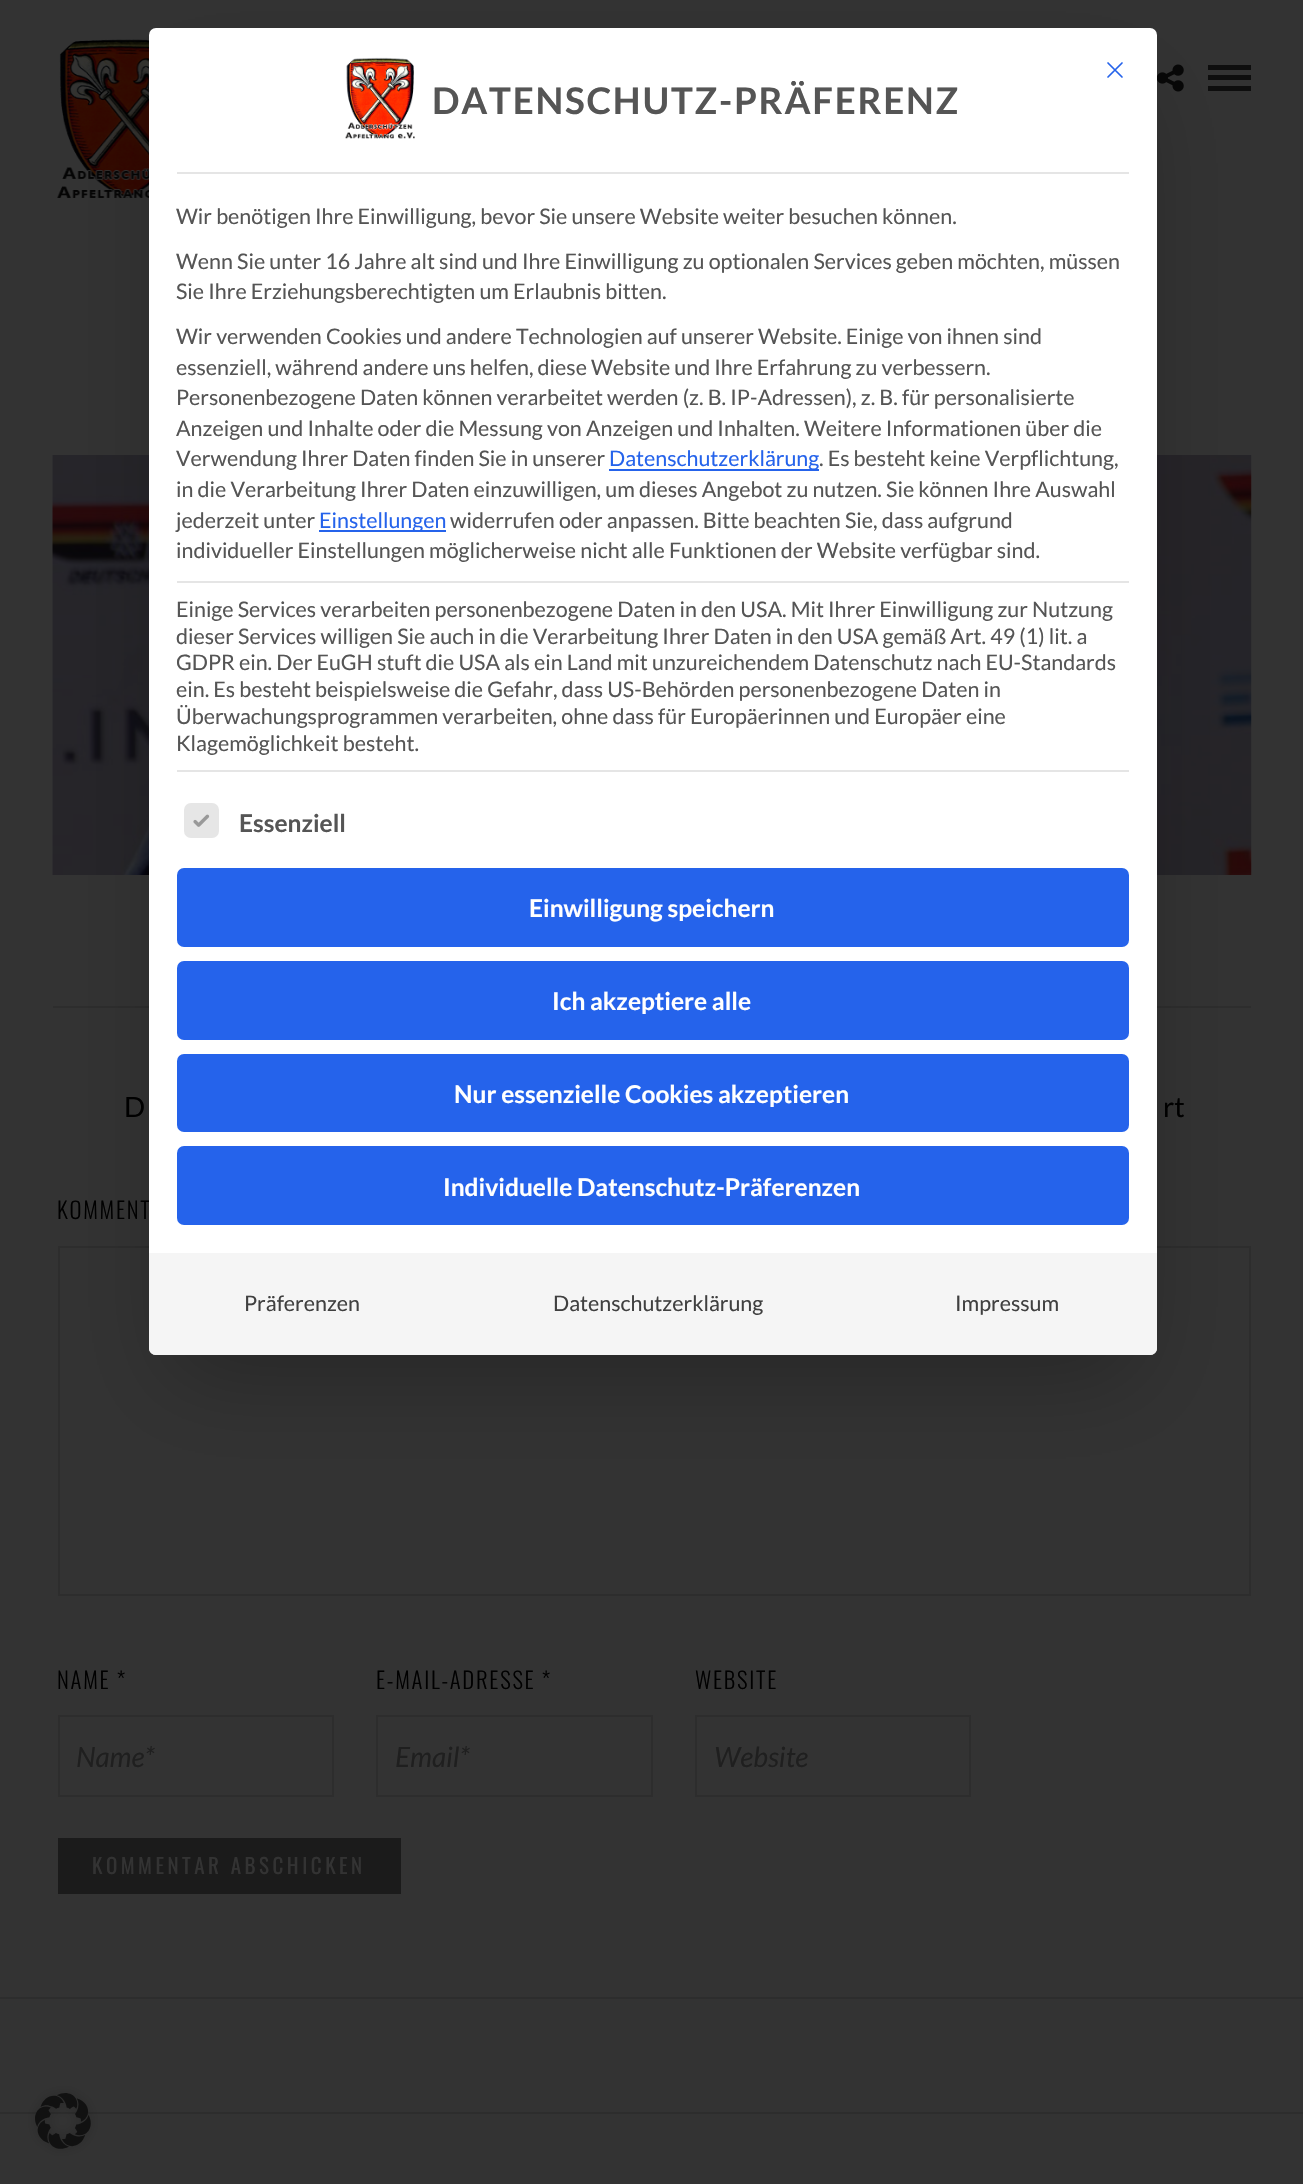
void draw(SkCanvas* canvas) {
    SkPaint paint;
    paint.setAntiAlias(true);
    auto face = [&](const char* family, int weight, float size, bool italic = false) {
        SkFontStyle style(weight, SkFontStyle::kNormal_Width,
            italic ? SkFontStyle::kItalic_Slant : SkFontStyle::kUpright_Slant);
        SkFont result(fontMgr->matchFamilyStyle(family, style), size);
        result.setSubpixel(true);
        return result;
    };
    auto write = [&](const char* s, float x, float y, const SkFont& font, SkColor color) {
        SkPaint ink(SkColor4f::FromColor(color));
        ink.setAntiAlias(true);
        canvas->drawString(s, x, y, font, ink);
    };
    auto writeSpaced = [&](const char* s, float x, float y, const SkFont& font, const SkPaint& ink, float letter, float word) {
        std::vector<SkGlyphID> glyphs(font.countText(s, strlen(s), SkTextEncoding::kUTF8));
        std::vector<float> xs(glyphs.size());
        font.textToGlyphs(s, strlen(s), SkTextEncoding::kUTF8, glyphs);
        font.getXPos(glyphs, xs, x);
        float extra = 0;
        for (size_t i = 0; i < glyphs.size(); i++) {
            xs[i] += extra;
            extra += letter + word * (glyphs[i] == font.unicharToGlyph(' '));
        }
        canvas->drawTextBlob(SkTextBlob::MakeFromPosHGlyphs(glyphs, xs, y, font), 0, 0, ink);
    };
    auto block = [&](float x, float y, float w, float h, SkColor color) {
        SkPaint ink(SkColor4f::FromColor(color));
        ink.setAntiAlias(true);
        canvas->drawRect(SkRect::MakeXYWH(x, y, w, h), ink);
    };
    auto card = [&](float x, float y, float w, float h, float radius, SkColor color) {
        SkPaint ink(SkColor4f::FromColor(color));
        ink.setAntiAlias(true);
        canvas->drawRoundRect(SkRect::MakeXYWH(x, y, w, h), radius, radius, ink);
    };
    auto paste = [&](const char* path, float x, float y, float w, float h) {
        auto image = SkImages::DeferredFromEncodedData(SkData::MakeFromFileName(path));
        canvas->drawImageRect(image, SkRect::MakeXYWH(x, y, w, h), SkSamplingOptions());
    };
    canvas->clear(SkColorSetRGB(51, 51, 51));
    paste("pic3.png", 56, 39, 93, 159);
    paste("pic4.png", 1157, 64, 27, 28);
    block(1208, 65, 43, 5, SkColorSetRGB(14, 14, 14));
    block(1208, 75, 43, 5, SkColorSetRGB(14, 14, 14));
    block(1208, 86, 43, 5, SkColorSetRGB(14, 14, 14));
    paste("pic5.png", 52, 455, 1200, 420);
    block(53, 1006, 1198, 2, SkColorSetRGB(45, 45, 45));
    paint.setStyle(SkPaint::kStroke_Style);
    paint.setStrokeWidth(2);
    paint.setColor(SkColorSetRGB(45, 45, 45));
    canvas->drawRect(SkRect::MakeXYWH(59, 1247, 1191, 348), paint);
    paint.setStyle(SkPaint::kFill_Style);
    paint.setColor(SkColorSetARGB(64, 0, 0, 0));
    paint.setMaskFilter(SkMaskFilter::MakeBlur(kNormal_SkBlurStyle, 44));
    canvas->drawRect(SkRect::MakeXYWH(170, 93, 966, 1284), paint);
    paint.setMaskFilter(nullptr);
    auto kFont1 = face("Oswald", 300, 22.75f);
    paint.setColor(SK_ColorBLACK);
    writeSpaced("KOMMENT", 57, 1219, kFont1, paint, 1.75f, 0);
    card(149, 28, 1008, 1327, 7, SK_ColorWHITE);
    paint.setStyle(SkPaint::kStroke_Style);
    paint.setStrokeWidth(1.7f);
    paint.setStrokeCap(SkPaint::kRound_Cap);
    paint.setStrokeJoin(SkPaint::kRound_Join);
    paint.setColor(SkColorSetRGB(37, 99, 235));
    canvas->drawPath(SkPathBuilder().moveTo(1108, 77).lineTo(1122, 63).moveTo(1108, 63).lineTo(1122, 77).detach(), paint);
    block(177, 172, 952, 2, SkColorSetRGB(229, 229, 229));
    paste("pic1.png", 345, 57, 70, 82);
    auto kFont2 = face("Lato", 700, 36.75f);
    paint.setStyle(SkPaint::kFill_Style);
    paint.setColor(SkColorSetRGB(85, 85, 85));
    writeSpaced("DATENSCHUTZ-PRÄFERENZ", 432, 114, kFont2, paint, 1.75f, 0);
    auto kFont3 = face("Lato", 400, 21.45f);
    write("Wir benötigen Ihre Einwilligung, bevor Sie unsere Website weiter besuchen können.", 176, 224, kFont3, SkColorSetRGB(85, 85, 85));
    write("Wenn Sie unter 16 Jahre alt sind und Ihre Einwilligung zu optionalen Services geben möchten, müssen", 176, 269, kFont3, SkColorSetRGB(85, 85, 85));
    write("Sie Ihre Erziehungsberechtigten um Erlaubnis bitten.", 176, 299, kFont3, SkColorSetRGB(85, 85, 85));
    write("Wir verwenden Cookies und andere Technologien auf unserer Website. Einige von ihnen sind", 176, 344, kFont3, SkColorSetRGB(85, 85, 85));
    write("essenziell, während andere uns helfen, diese Website und Ihre Erfahrung zu verbessern.", 176, 375, kFont3, SkColorSetRGB(85, 85, 85));
    write("Personenbezogene Daten können verarbeitet werden (z. B. IP-Adressen), z. B. für personalisierte", 176, 405, kFont3, SkColorSetRGB(85, 85, 85));
    write("Anzeigen und Inhalte oder die Messung von Anzeigen und Inhalten. Weitere Informationen über die", 176, 436, kFont3, SkColorSetRGB(85, 85, 85));
    write("Verwendung Ihrer Daten finden Sie in unserer", 176, 466, kFont3, SkColorSetRGB(85, 85, 85));
    block(609, 469, 210, 2, SkColorSetRGB(37, 99, 235));
    write("Datenschutzerklärung", 609, 466, kFont3, SkColorSetRGB(37, 99, 235));
    write(". Es besteht keine Verpflichtung,", 819, 466, kFont3, SkColorSetRGB(85, 85, 85));
    write("in die Verarbeitung Ihrer Daten einzuwilligen, um dieses Angebot zu nutzen. Sie können Ihre Auswahl", 176, 497, kFont3, SkColorSetRGB(85, 85, 85));
    write("jederzeit unter", 176, 528, kFont3, SkColorSetRGB(85, 85, 85));
    block(319, 530, 127, 2, SkColorSetRGB(37, 99, 235));
    write("Einstellungen", 319, 528, kFont3, SkColorSetRGB(37, 99, 235));
    write("widerrufen oder anpassen. Bitte beachten Sie, dass aufgrund", 450, 528, kFont3, SkColorSetRGB(85, 85, 85));
    write("individueller Einstellungen möglicherweise nicht alle Funktionen der Website verfügbar sind.", 176, 558, kFont3, SkColorSetRGB(85, 85, 85));
    block(177, 581, 952, 2, SkColorSetRGB(229, 229, 229));
    block(177, 770, 952, 2, SkColorSetRGB(229, 229, 229));
    write("Einige Services verarbeiten personenbezogene Daten in den USA. Mit Ihrer Einwilligung zur Nutzung", 176, 617, kFont3, SkColorSetRGB(85, 85, 85));
    write("dieser Services willigen Sie auch in die Verarbeitung Ihrer Daten in den USA gemäß Art. 49 (1) lit. a", 176, 644, kFont3, SkColorSetRGB(85, 85, 85));
    write("GDPR ein. Der EuGH stuft die USA als ein Land mit unzureichendem Datenschutz nach EU-Standards", 176, 670, kFont3, SkColorSetRGB(85, 85, 85));
    write("ein. Es besteht beispielsweise die Gefahr, dass US-Behörden personenbezogene Daten in", 176, 697, kFont3, SkColorSetRGB(85, 85, 85));
    write("Überwachungsprogrammen verarbeiten, ohne dass für Europäerinnen und Europäer eine", 176, 724, kFont3, SkColorSetRGB(85, 85, 85));
    write("Klagemöglichkeit besteht.", 176, 751, kFont3, SkColorSetRGB(85, 85, 85));
    paint.setColor(SkColorSetRGB(230, 230, 230));
    canvas->drawRoundRect(SkRect::MakeXYWH(186, 805, 31, 31), 5, 5, paint);
    paint.setStyle(SkPaint::kStroke_Style);
    paint.setStrokeWidth(4);
    paint.setStrokeCap(SkPaint::kButt_Cap);
    paint.setStrokeJoin(SkPaint::kMiter_Join);
    canvas->drawRoundRect(SkRect::MakeXYWH(186, 805, 31, 31), 5, 5, paint);
    paste("pic2.png", 193, 814, 17, 13);
    auto kFont4 = face("Lato", 700, 24.5f);
    write("Essenziell", 239, 832, kFont4, SkColorSetRGB(85, 85, 85));
    card(177, 868, 952, 79, 7, SkColorSetRGB(37, 99, 235));
    write("Einwilligung speichern", 529, 917, kFont4, SK_ColorWHITE);
    card(177, 961, 952, 79, 7, SkColorSetRGB(37, 99, 235));
    write("Ich akzeptiere alle", 552, 1010, kFont4, SK_ColorWHITE);
    card(177, 1054, 952, 78, 7, SkColorSetRGB(37, 99, 235));
    write("Nur essenzielle Cookies akzeptieren", 454, 1103, kFont4, SK_ColorWHITE);
    card(177, 1146, 952, 79, 7, SkColorSetRGB(37, 99, 235));
    write("Individuelle Datenschutz-Präferenzen", 443, 1196, kFont4, SK_ColorWHITE);
    paint.setStyle(SkPaint::kFill_Style);
    paint.setColor(SkColorSetRGB(245, 245, 245));
    canvas->drawPath(SkPathBuilder().moveTo(149, 1253).lineTo(1157, 1253).lineTo(1157, 1348).cubicTo(1157, 1352, 1154, 1355, 1150, 1355).lineTo(156, 1355).cubicTo(152, 1355, 149, 1352, 149, 1348).close().detach(), paint);
    write("Präferenzen", 244, 1311, kFont3, SkColorSetRGB(64, 64, 64));
    write("Datenschutzerklärung", 553, 1311, kFont3, SkColorSetRGB(64, 64, 64));
    write("Impressum", 955, 1311, kFont3, SkColorSetRGB(64, 64, 64));
    auto kFont5 = face("Lato", 400, 28);
    write("D", 124, 1117, kFont5, SK_ColorBLACK);
    write("rt", 1163, 1117, kFont5, SK_ColorBLACK);
    paint.setColor(SK_ColorBLACK);
    writeSpaced("NAME *", 57, 1689, kFont1, paint, 1.75f, 0);
    paint.setStyle(SkPaint::kStroke_Style);
    paint.setStrokeWidth(2);
    paint.setColor(SkColorSetRGB(45, 45, 45));
    canvas->drawRect(SkRect::MakeXYWH(59, 1716, 274, 80), paint);
    auto kFont6 = face("Lato", 400, 28, true);
    write("Name*", 76, 1767, kFont6, SkColorSetRGB(31, 31, 31));
    paint.setStyle(SkPaint::kFill_Style);
    paint.setColor(SK_ColorBLACK);
    writeSpaced("E-MAIL-ADRESSE *", 376, 1689, kFont1, paint, 1.75f, 0);
    paint.setStyle(SkPaint::kStroke_Style);
    paint.setColor(SkColorSetRGB(45, 45, 45));
    canvas->drawRect(SkRect::MakeXYWH(377, 1716, 275, 80), paint);
    write("Email*", 395, 1767, kFont6, SkColorSetRGB(31, 31, 31));
    paint.setStyle(SkPaint::kFill_Style);
    paint.setColor(SK_ColorBLACK);
    writeSpaced("WEBSITE", 695, 1689, kFont1, paint, 1.75f, 0);
    paint.setStyle(SkPaint::kStroke_Style);
    paint.setColor(SkColorSetRGB(45, 45, 45));
    canvas->drawRect(SkRect::MakeXYWH(696, 1716, 274, 80), paint);
    write("Website", 714, 1767, kFont6, SkColorSetRGB(31, 31, 31));
    block(58, 1838, 343, 56, SkColorSetRGB(27, 27, 27));
    auto kFont7 = face("Oswald", 400, 21);
    paint.setStyle(SkPaint::kFill_Style);
    paint.setColor(SkColorSetRGB(51, 51, 51));
    writeSpaced("KOMMENTAR ABSCHICKEN", 92, 1874, kFont7, paint, 3.5f, 0);
    block(0, 1997, 1303, 2, SkColorSetRGB(45, 45, 45));
    block(0, 2112, 1303, 2, SkColorSetRGB(45, 45, 45));
    paste("pic6.png", 28, 2086, 70, 70);
}
